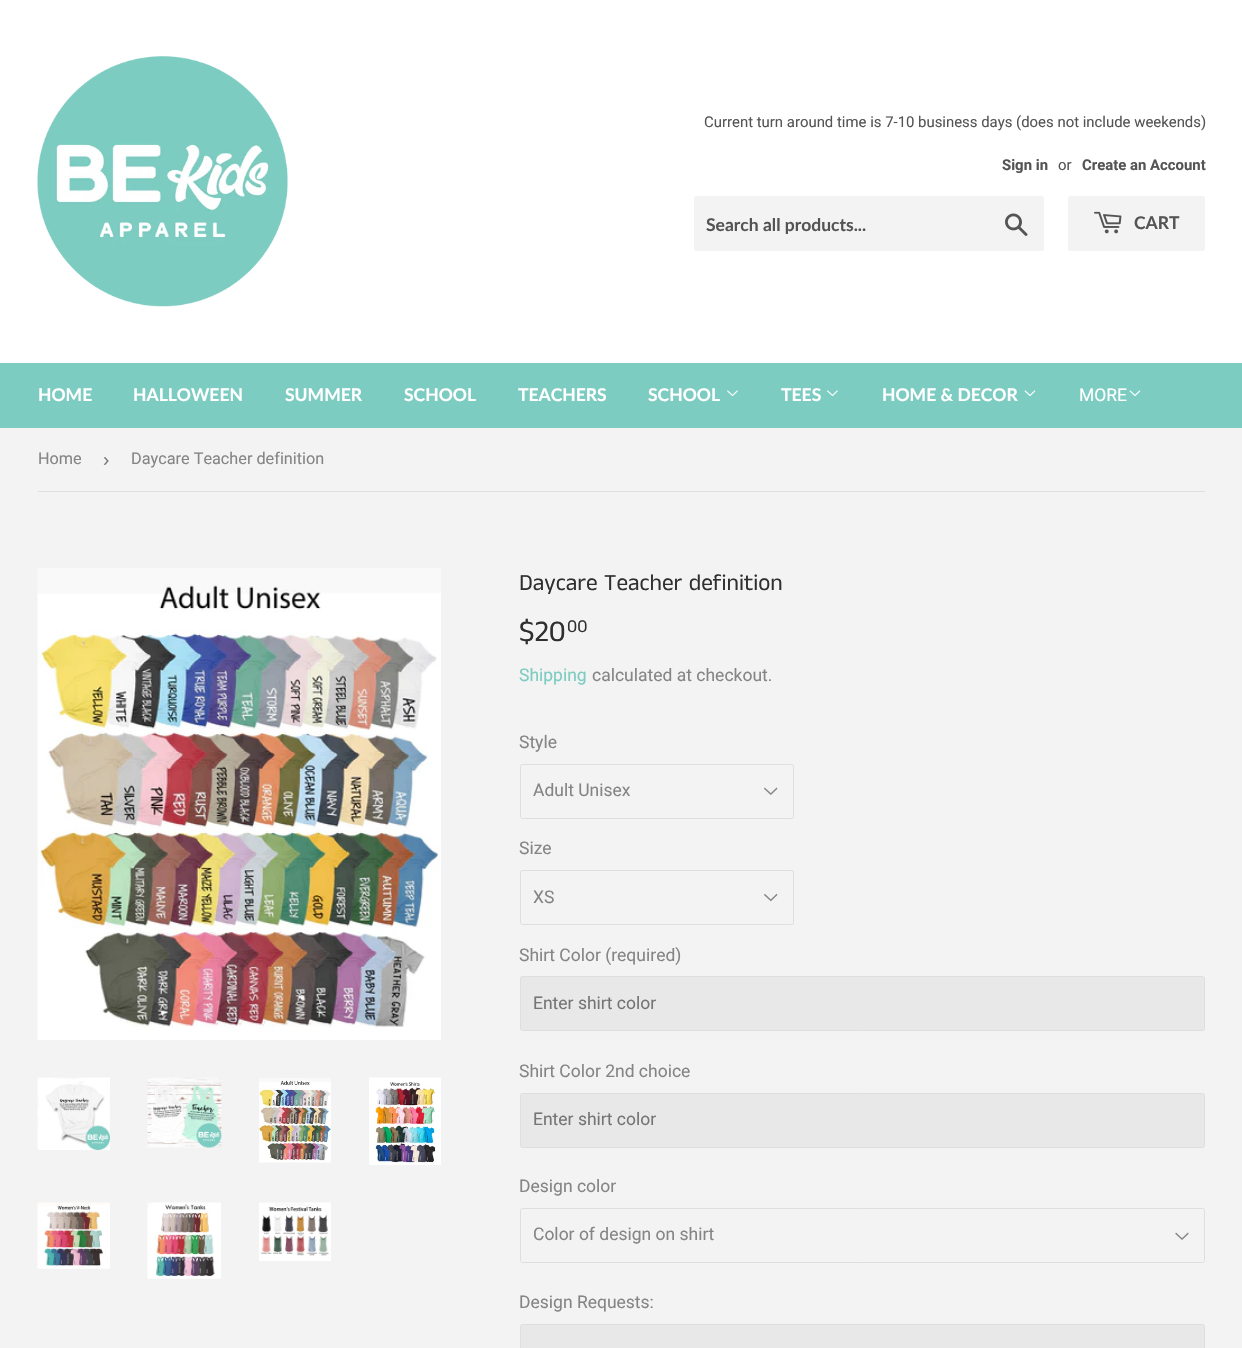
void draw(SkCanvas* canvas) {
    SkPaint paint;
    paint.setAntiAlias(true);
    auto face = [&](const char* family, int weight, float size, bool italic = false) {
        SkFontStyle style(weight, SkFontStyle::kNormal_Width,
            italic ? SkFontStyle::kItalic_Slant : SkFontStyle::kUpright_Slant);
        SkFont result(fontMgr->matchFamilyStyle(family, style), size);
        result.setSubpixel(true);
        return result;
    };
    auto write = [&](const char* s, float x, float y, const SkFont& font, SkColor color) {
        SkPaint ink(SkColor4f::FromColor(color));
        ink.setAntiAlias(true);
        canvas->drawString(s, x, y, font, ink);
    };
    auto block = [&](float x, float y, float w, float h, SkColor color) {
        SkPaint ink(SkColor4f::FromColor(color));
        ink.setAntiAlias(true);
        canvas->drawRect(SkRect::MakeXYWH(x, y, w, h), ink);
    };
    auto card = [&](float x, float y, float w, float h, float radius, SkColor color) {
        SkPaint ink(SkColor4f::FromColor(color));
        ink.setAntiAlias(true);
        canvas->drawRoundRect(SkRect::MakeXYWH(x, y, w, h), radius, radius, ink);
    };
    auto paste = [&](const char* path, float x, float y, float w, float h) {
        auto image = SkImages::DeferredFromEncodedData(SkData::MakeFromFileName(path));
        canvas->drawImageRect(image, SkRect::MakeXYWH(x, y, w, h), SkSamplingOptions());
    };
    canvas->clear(SkColorSetRGB(243, 243, 243));
    block(0, 0, 1242, 363, SK_ColorWHITE);
    paste("pic1.png", 37, 56, 251, 251);
    auto kFont1 = face("Roboto", 400, 14.9f);
    write("Current turn around time is 7-10 business days (does not include weekends)", 704, 127, kFont1, SkColorSetRGB(84, 84, 84));
    auto kFont2 = face("Roboto", 700, 14.9f);
    write("Sign in", 1002, 170, kFont2, SkColorSetRGB(84, 84, 84));
    write("or", 1058, 170, kFont1, SkColorSetRGB(84, 84, 84));
    write("Create an Account", 1082, 170, kFont2, SkColorSetRGB(84, 84, 84));
    card(694, 196, 350, 55, 2.5f, SkColorSetRGB(243, 243, 243));
    auto kFont3 = face("Lato", 700, 17.5f);
    write("Search all products...", 706, 231, kFont3, SkColorSetRGB(84, 84, 84));
    paste("pic2.png", 1005, 213, 23, 23);
    card(1068, 196, 137, 55, 2.5f, SkColorSetRGB(243, 243, 243));
    paste("pic3.png", 1094, 211, 28, 23);
    write("CART", 1134, 229, kFont3, SkColorSetRGB(84, 84, 84));
    block(0, 363, 1242, 65, SkColorSetRGB(125, 204, 194));
    write("HOME", 38, 401, kFont3, SK_ColorWHITE);
    write("HALLOWEEN", 133, 401, kFont3, SK_ColorWHITE);
    write("SUMMER", 285, 401, kFont3, SK_ColorWHITE);
    write("SCHOOL", 404, 401, kFont3, SK_ColorWHITE);
    write("TEACHERS", 518, 401, kFont3, SK_ColorWHITE);
    write("SCHOOL", 648, 401, kFont3, SK_ColorWHITE);
    paste("pic4.png", 727, 390, 11, 7);
    write("TEES", 781, 401, kFont3, SK_ColorWHITE);
    paste("pic4.png", 827, 390, 11, 7);
    write("HOME & DECOR", 882, 401, kFont3, SK_ColorWHITE);
    paste("pic5.png", 1024, 390, 12, 7);
    auto kFont4 = face("Roboto", 400, 17.5f);
    write("MORE", 1079, 401, kFont4, SK_ColorWHITE);
    paste("pic5.png", 1129, 390, 12, 7);
    block(38, 491, 1167, 1, SkColorSetRGB(222, 222, 222));
    auto kFont5 = face("Roboto", 400, 16.25f);
    write("Home", 38, 464, kFont5, SkColorSetRGB(133, 133, 133));
    auto kFont6 = face("Liberation Sans", 400, 19);
    write("›", 103, 466, kFont6, SkColorSetRGB(117, 117, 117));
    write("Daycare Teacher definition", 131, 464, kFont5, SkColorSetRGB(133, 133, 133));
    paste("pic6.png", 37, 568, 404, 472);
    paste("pic7.png", 37, 1077, 73, 73);
    paste("pic8.png", 147, 1077, 75, 71);
    paste("pic9.png", 259, 1078, 72, 85);
    paste("pic10.png", 369, 1077, 72, 88);
    paste("pic11.png", 37, 1202, 73, 67);
    paste("pic12.png", 147, 1202, 74, 77);
    paste("pic13.png", 259, 1202, 72, 59);
    auto kFont7 = face("Anek Tamil", 400, 23.25f);
    write("Daycare Teacher definition", 519, 590, kFont7, SkColorSetRGB(47, 47, 47));
    auto kFont8 = face("Anek Tamil", 400, 30);
    write("$20", 519, 641, kFont8, SkColorSetRGB(47, 47, 47));
    auto kFont9 = face("Anek Tamil", 400, 18);
    write("00", 567, 632, kFont9, SkColorSetRGB(47, 47, 47));
    write("Shipping", 519, 681, kFont4, SkColorSetRGB(125, 204, 194));
    write("calculated at checkout.", 592, 681, kFont4, SkColorSetRGB(133, 133, 133));
    write("Style", 519, 748, kFont4, SkColorSetRGB(133, 133, 133));
    paste("pic14.png", 764, 787, 14, 8);
    paint.setStyle(SkPaint::kStroke_Style);
    paint.setStrokeWidth(1);
    paint.setColor(SkColorSetRGB(222, 222, 222));
    canvas->drawRoundRect(SkRect::MakeXYWH(520.5f, 764.5f, 273, 54), 2, 2, paint);
    write("Adult Unisex", 533, 796, kFont4, SkColorSetRGB(133, 133, 133));
    write("Size", 519, 854, kFont4, SkColorSetRGB(133, 133, 133));
    paste("pic15.png", 764, 893, 14, 9);
    canvas->drawRoundRect(SkRect::MakeXYWH(520.5f, 870.5f, 273, 54), 2, 2, paint);
    write("XS", 533, 903, kFont4, SkColorSetRGB(133, 133, 133));
    write("Shirt Color (required)", 519, 961, kFont4, SkColorSetRGB(133, 133, 133));
    paint.setStyle(SkPaint::kFill_Style);
    paint.setColor(SkColorSetRGB(232, 232, 232));
    canvas->drawRoundRect(SkRect::MakeXYWH(520.5f, 976.5f, 684, 54), 2, 2, paint);
    paint.setStyle(SkPaint::kStroke_Style);
    paint.setColor(SkColorSetRGB(222, 222, 222));
    canvas->drawRoundRect(SkRect::MakeXYWH(520.5f, 976.5f, 684, 54), 2, 2, paint);
    write("Enter shirt color", 533, 1009, kFont4, SkColorSetRGB(117, 117, 117));
    write("Shirt Color 2nd choice", 519, 1077, kFont4, SkColorSetRGB(133, 133, 133));
    paint.setStyle(SkPaint::kFill_Style);
    paint.setColor(SkColorSetRGB(232, 232, 232));
    canvas->drawRoundRect(SkRect::MakeXYWH(520.5f, 1093.5f, 684, 54), 2, 2, paint);
    paint.setStyle(SkPaint::kStroke_Style);
    paint.setColor(SkColorSetRGB(222, 222, 222));
    canvas->drawRoundRect(SkRect::MakeXYWH(520.5f, 1093.5f, 684, 54), 2, 2, paint);
    write("Enter shirt color", 533, 1125, kFont4, SkColorSetRGB(117, 117, 117));
    write("Design color", 519, 1192, kFont4, SkColorSetRGB(133, 133, 133));
    paste("pic16.png", 1175, 1232, 14, 8);
    canvas->drawRoundRect(SkRect::MakeXYWH(520.5f, 1208.5f, 684, 54), 2, 2, paint);
    write("Color of design on shirt", 533, 1240, kFont4, SkColorSetRGB(133, 133, 133));
    write("Design Requests:", 519, 1308, kFont4, SkColorSetRGB(133, 133, 133));
    paint.setStyle(SkPaint::kFill_Style);
    paint.setColor(SkColorSetRGB(232, 232, 232));
    canvas->drawRoundRect(SkRect::MakeXYWH(520.5f, 1324.5f, 684, 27), 2, 2, paint);
    paint.setStyle(SkPaint::kStroke_Style);
    paint.setColor(SkColorSetRGB(222, 222, 222));
    canvas->drawRoundRect(SkRect::MakeXYWH(520.5f, 1324.5f, 684, 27), 2, 2, paint);
}
